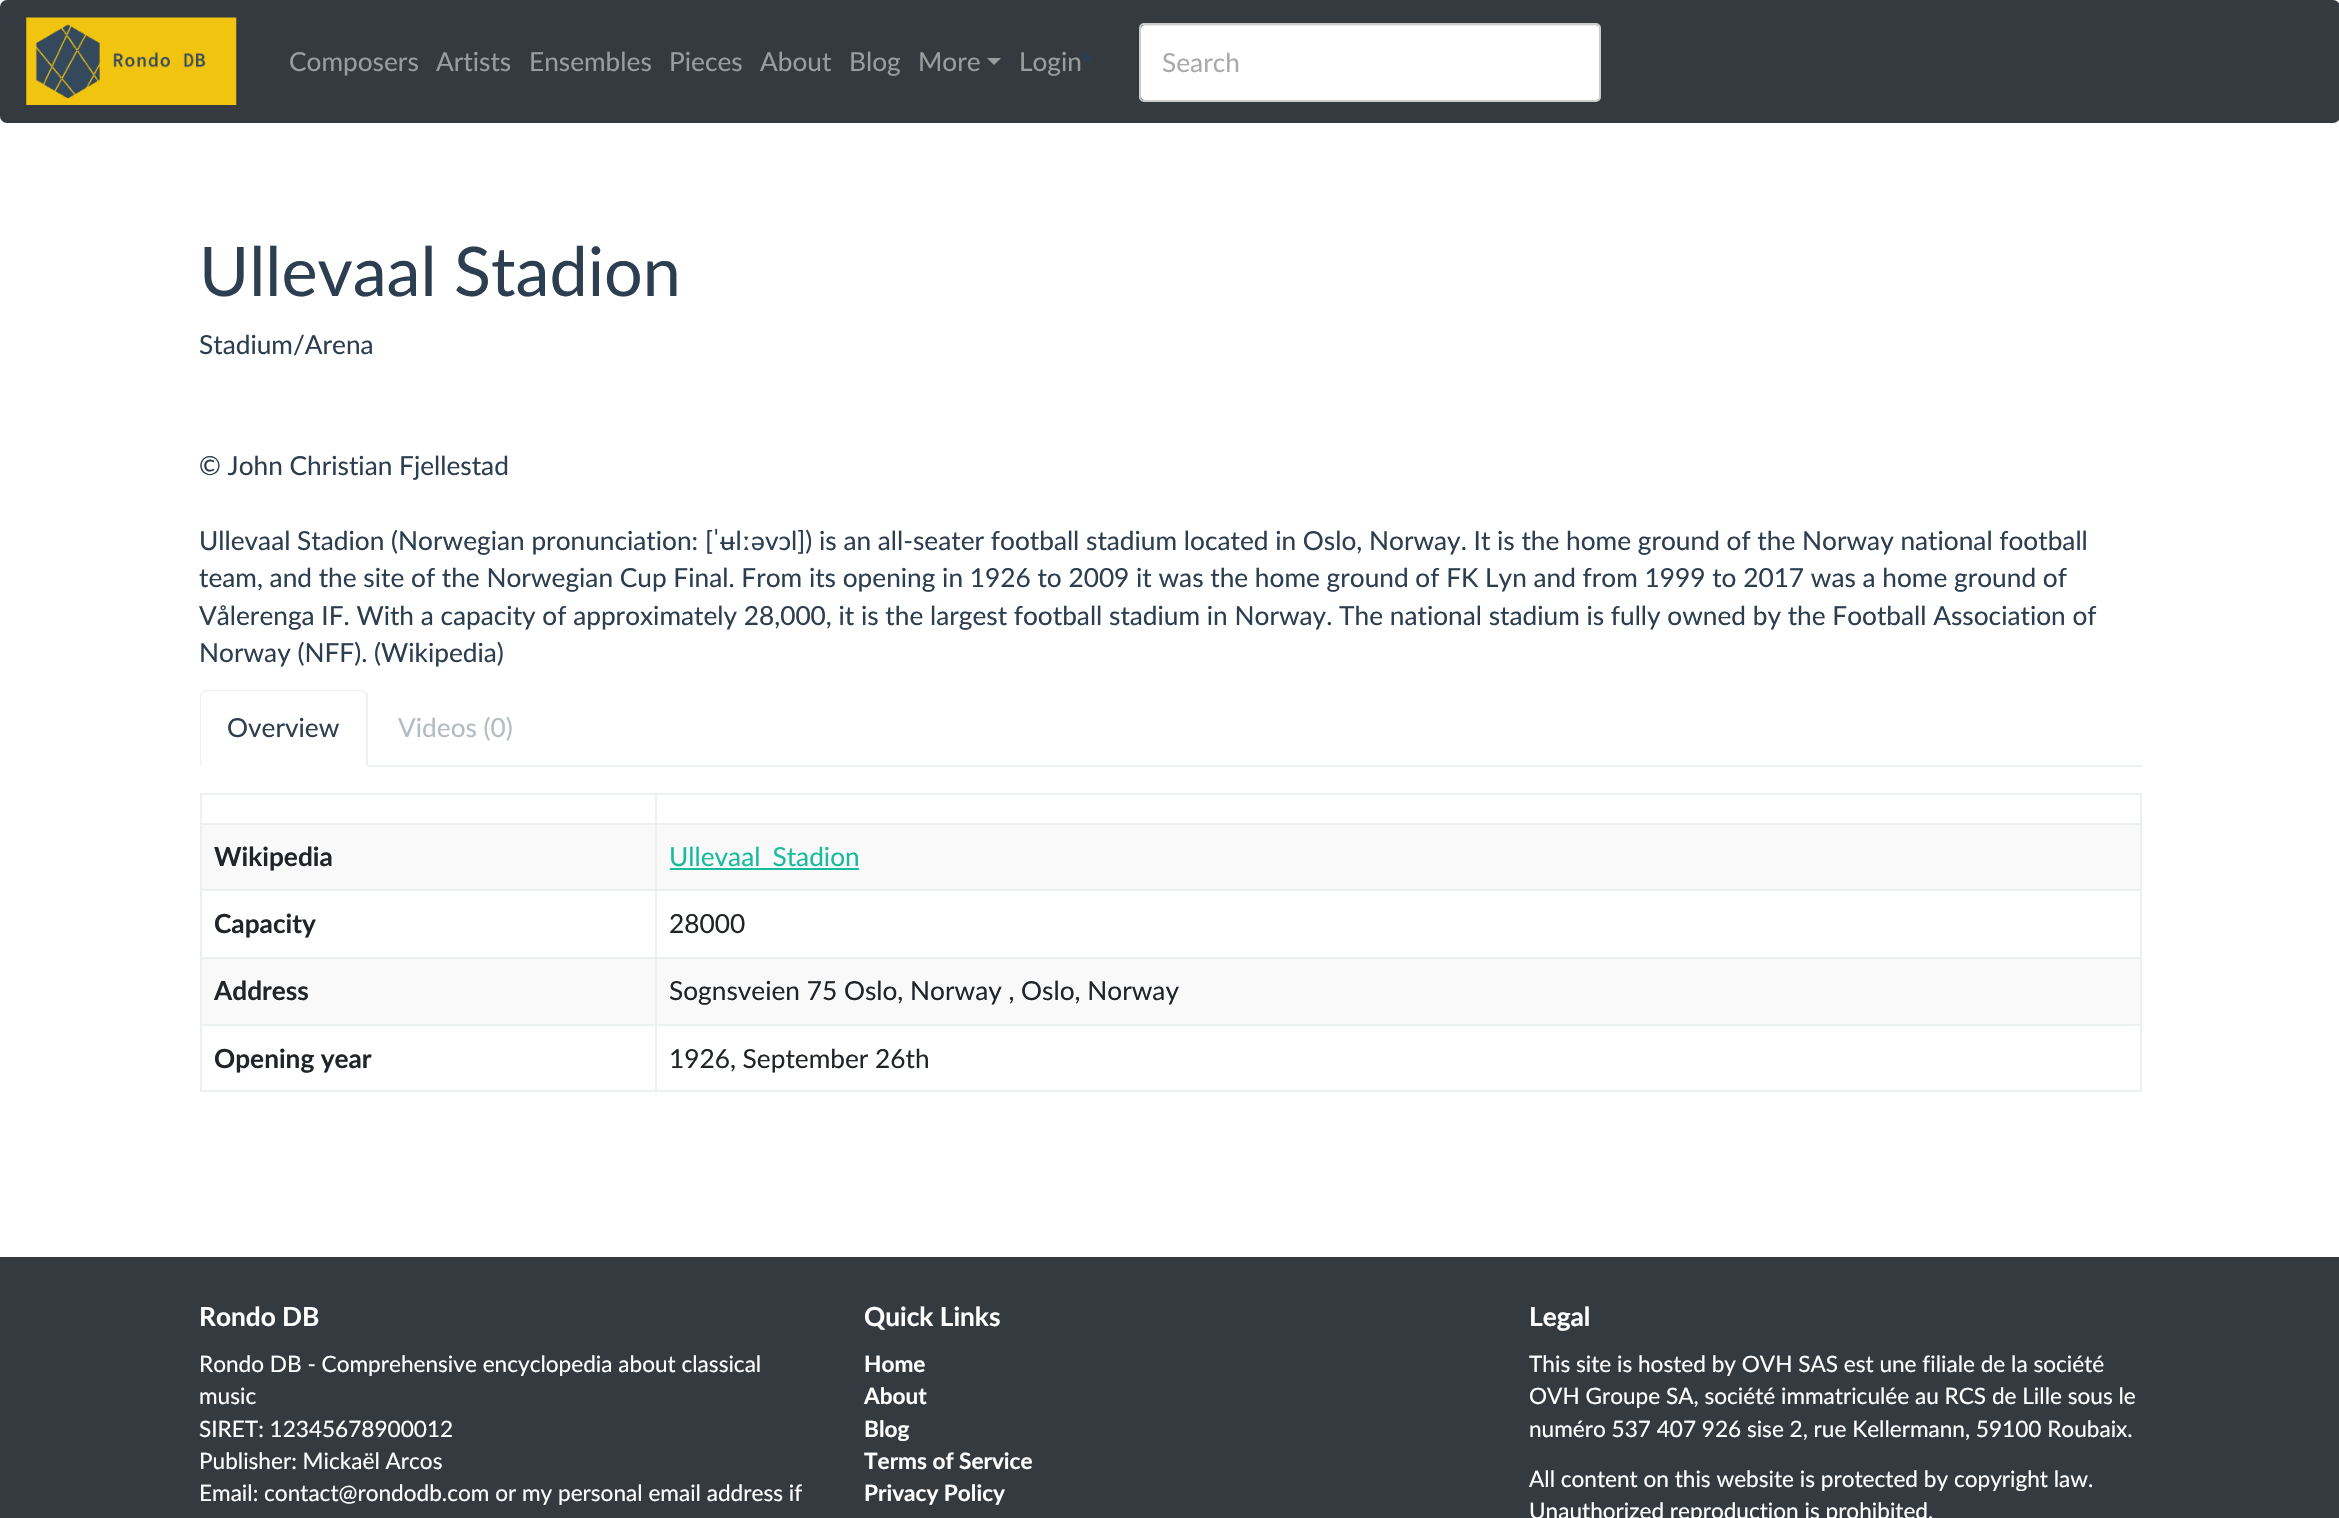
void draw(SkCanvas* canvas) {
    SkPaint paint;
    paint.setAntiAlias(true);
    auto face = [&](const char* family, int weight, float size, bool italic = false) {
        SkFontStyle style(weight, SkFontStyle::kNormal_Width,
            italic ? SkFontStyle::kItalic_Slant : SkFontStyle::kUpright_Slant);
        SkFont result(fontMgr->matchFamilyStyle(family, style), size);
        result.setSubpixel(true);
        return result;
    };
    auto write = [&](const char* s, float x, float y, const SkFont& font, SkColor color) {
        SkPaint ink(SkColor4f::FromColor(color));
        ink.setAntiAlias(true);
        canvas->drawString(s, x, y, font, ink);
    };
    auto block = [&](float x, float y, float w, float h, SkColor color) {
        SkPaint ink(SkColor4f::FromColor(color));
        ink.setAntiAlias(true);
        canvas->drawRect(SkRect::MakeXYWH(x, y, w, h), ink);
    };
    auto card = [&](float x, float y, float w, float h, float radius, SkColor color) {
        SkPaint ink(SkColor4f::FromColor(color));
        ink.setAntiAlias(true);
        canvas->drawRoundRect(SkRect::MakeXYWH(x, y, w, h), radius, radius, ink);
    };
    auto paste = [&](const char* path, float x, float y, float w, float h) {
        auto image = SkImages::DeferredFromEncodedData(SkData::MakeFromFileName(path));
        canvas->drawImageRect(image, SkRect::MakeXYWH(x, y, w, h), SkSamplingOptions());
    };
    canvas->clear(SK_ColorWHITE);
    card(0, 0, 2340, 123, 7, SkColorSetRGB(52, 58, 64));
    paste("pic1.png", 26, 17, 211, 88);
    auto kFont1 = face("Lato", 400, 26.25f);
    write("Composers", 289, 71, kFont1, SkColorSetRGB(154, 157, 160));
    write("Artists", 436, 71, kFont1, SkColorSetRGB(154, 157, 160));
    write("Ensembles", 529, 71, kFont1, SkColorSetRGB(154, 157, 160));
    write("Pieces", 669, 71, kFont1, SkColorSetRGB(154, 157, 160));
    write("About", 760, 71, kFont1, SkColorSetRGB(154, 157, 160));
    write("Blog", 849, 71, kFont1, SkColorSetRGB(154, 157, 160));
    write("More", 918, 71, kFont1, SkColorSetRGB(154, 157, 160));
    paint.setColor(SkColorSetRGB(154, 157, 160));
    canvas->drawPath(SkPathBuilder().moveTo(987, 58).lineTo(1001, 58).lineTo(994, 65).close().detach(), paint);
    write("Login", 1019, 71, kFont1, SkColorSetRGB(154, 157, 160));
    paint.setColor(SkColorSetRGB(44, 62, 80));
    canvas->drawCircle(1087.5f, 58.5f, 4.5f, paint);
    card(1141, 25, 459, 75, 4, SK_ColorWHITE);
    paint.setColor(SkColorSetARGB(18, 0, 0, 0));
    canvas->drawPath(SkPathBuilder().moveTo(1144, 26).lineTo(1596, 26).cubicTo(1598, 26, 1600, 28, 1600, 30).cubicTo(1600, 27, 1599, 25, 1596, 25).lineTo(1145, 25).lineTo(1143, 26).lineTo(1142, 27).lineTo(1141, 30).cubicTo(1141, 28, 1143, 26, 1144, 26).close().detach(), paint);
    paint.setStyle(SkPaint::kStroke_Style);
    paint.setStrokeWidth(2);
    paint.setColor(SkColorSetRGB(204, 204, 204));
    canvas->drawRoundRect(SkRect::MakeXYWH(1140, 24, 460, 77), 4, 4, paint);
    write("Search", 1162, 72, kFont1, SkColorSetRGB(170, 170, 170));
    auto kFont2 = face("Lato", 400, 68.25f);
    write("Ullevaal Stadion", 199, 296, kFont2, SkColorSetRGB(44, 62, 80));
    write("Stadium/Arena", 199, 354, kFont1, SkColorSetRGB(44, 62, 80));
    write("© John Christian Fjellestad", 199, 475, kFont1, SkColorSetRGB(44, 62, 80));
    write("Ullevaal Stadion (Norwegian pronunciation: [ˈʉlːəvɔl]) is an all-seater football stadium located in Oslo, Norway. It is the home ground of the Norway national football", 199, 550, kFont1, SkColorSetRGB(44, 62, 80));
    write("team, and the site of the Norwegian Cup Final. From its opening in 1926 to 2009 it was the home ground of FK Lyn and from 1999 to 2017 was a home ground of", 199, 587, kFont1, SkColorSetRGB(44, 62, 80));
    write("Vålerenga IF. With a capacity of approximately 28,000, it is the largest football stadium in Norway. The national stadium is fully owned by the Football Association of", 199, 625, kFont1, SkColorSetRGB(44, 62, 80));
    write("Norway (NFF). (Wikipedia)", 199, 662, kFont1, SkColorSetRGB(44, 62, 80));
    block(368, 765, 1774, 2, SkColorSetRGB(236, 240, 241));
    paint.setStyle(SkPaint::kFill_Style);
    paint.setColor(SkColorSetRGB(236, 240, 241));
    canvas->drawPath(SkPathBuilder().moveTo(206, 690).cubicTo(204, 690, 203, 691, 202, 692).lineTo(203, 693).lineTo(206, 691).lineTo(361, 691).lineTo(364, 693).lineTo(365, 692).cubicTo(364, 691, 362, 690, 360, 690).close().detach(), paint);
    canvas->drawPath(SkPathBuilder().moveTo(365, 692).lineTo(368, 694).lineTo(368, 766).lineTo(366, 765).lineTo(366, 696).lineTo(364, 693).close().detach(), paint);
    canvas->drawPath(SkPathBuilder().moveTo(202, 692).lineTo(200, 695).lineTo(200, 766).lineTo(201, 765).lineTo(201, 696).lineTo(203, 693).close().detach(), paint);
    write("Overview", 227, 737, kFont1, SkColorSetRGB(44, 62, 80));
    write("Videos (0)", 398, 737, kFont1, SkColorSetRGB(180, 188, 194));
    block(200, 793, 1942, 2, SkColorSetRGB(236, 240, 241));
    block(2140, 793, 2, 299, SkColorSetRGB(236, 240, 241));
    block(200, 1090, 1942, 2, SkColorSetRGB(236, 240, 241));
    block(200, 793, 2, 299, SkColorSetRGB(236, 240, 241));
    block(655, 823, 1487, 2, SkColorSetRGB(236, 240, 241));
    block(202, 825, 1938, 64, SkColorSetRGB(249, 249, 249));
    block(655, 889, 1487, 2, SkColorSetRGB(236, 240, 241));
    block(655, 957, 1487, 2, SkColorSetRGB(236, 240, 241));
    block(202, 959, 1938, 65, SkColorSetRGB(249, 249, 249));
    block(655, 1024, 1487, 2, SkColorSetRGB(236, 240, 241));
    block(655, 1024, 2, 68, SkColorSetRGB(236, 240, 241));
    block(200, 1024, 456, 2, SkColorSetRGB(236, 240, 241));
    block(655, 957, 2, 69, SkColorSetRGB(236, 240, 241));
    block(200, 957, 456, 2, SkColorSetRGB(236, 240, 241));
    block(655, 889, 2, 70, SkColorSetRGB(236, 240, 241));
    block(200, 889, 456, 2, SkColorSetRGB(236, 240, 241));
    block(655, 823, 2, 68, SkColorSetRGB(236, 240, 241));
    block(200, 823, 456, 2, SkColorSetRGB(236, 240, 241));
    block(655, 793, 2, 31, SkColorSetRGB(236, 240, 241));
    auto kFont3 = face("Lato", 700, 26.25f);
    write("Wikipedia", 214, 866, kFont3, SkColorSetRGB(33, 37, 41));
    block(670, 868, 189, 2, SkColorSetRGB(24, 188, 156));
    write("Ullevaal_Stadion", 669, 866, kFont1, SkColorSetRGB(24, 188, 156));
    write("Capacity", 214, 933, kFont3, SkColorSetRGB(33, 37, 41));
    write("28000", 669, 933, kFont1, SkColorSetRGB(33, 37, 41));
    write("Address", 214, 1000, kFont3, SkColorSetRGB(33, 37, 41));
    write("Sognsveien 75 Oslo, Norway , Oslo, Norway", 669, 1000, kFont1, SkColorSetRGB(33, 37, 41));
    write("Opening year", 214, 1068, kFont3, SkColorSetRGB(33, 37, 41));
    write("1926, September 26th", 669, 1068, kFont1, SkColorSetRGB(33, 37, 41));
    block(0, 1257, 2339, 261, SkColorSetRGB(52, 58, 64));
    write("Rondo DB", 199, 1326, kFont3, SK_ColorWHITE);
    auto kFont4 = face("Lato", 400, 22.6f);
    write("Rondo DB - Comprehensive encyclopedia about classical", 199, 1372, kFont4, SK_ColorWHITE);
    write("music", 199, 1404, kFont4, SK_ColorWHITE);
    write("SIRET: 12345678900012", 199, 1437, kFont4, SK_ColorWHITE);
    write("Publisher: Mickaël Arcos", 199, 1469, kFont4, SK_ColorWHITE);
    write("Email: contact@rondodb.com or my personal email address if", 199, 1501, kFont4, SK_ColorWHITE);
    write("Quick Links", 864, 1326, kFont3, SK_ColorWHITE);
    auto kFont5 = face("Lato", 700, 22.6f);
    write("Home", 864, 1372, kFont5, SK_ColorWHITE);
    write("About", 864, 1404, kFont5, SK_ColorWHITE);
    write("Blog", 864, 1437, kFont5, SK_ColorWHITE);
    write("Terms of Service", 864, 1469, kFont5, SK_ColorWHITE);
    write("Privacy Policy", 864, 1501, kFont5, SK_ColorWHITE);
    write("Legal", 1529, 1326, kFont3, SK_ColorWHITE);
    write("This site is hosted by OVH SAS est une filiale de la société", 1529, 1372, kFont4, SK_ColorWHITE);
    write("OVH Groupe SA, société immatriculée au RCS de Lille sous le", 1529, 1404, kFont4, SK_ColorWHITE);
    write("numéro 537 407 926 sise 2, rue Kellermann, 59100 Roubaix.", 1529, 1437, kFont4, SK_ColorWHITE);
    write("All content on this website is protected by copyright law.", 1529, 1487, kFont4, SK_ColorWHITE);
    write("Unauthorized reproduction is prohibited.", 1529, 1519, kFont4, SK_ColorWHITE);
}
